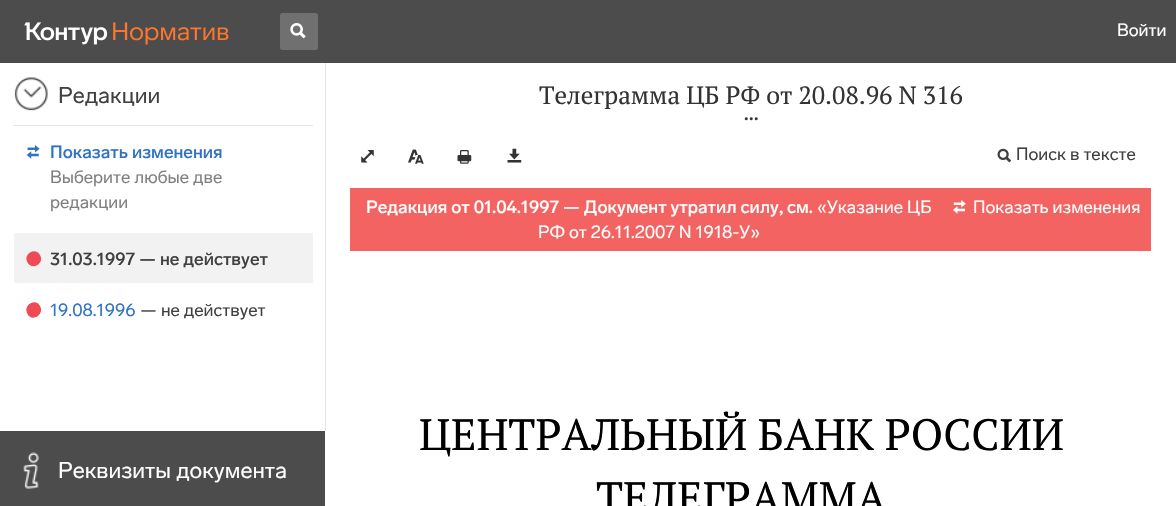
void draw(SkCanvas* canvas) {
    SkPaint paint;
    paint.setAntiAlias(true);
    auto face = [&](const char* family, int weight, float size, bool italic = false) {
        SkFontStyle style(weight, SkFontStyle::kNormal_Width,
            italic ? SkFontStyle::kItalic_Slant : SkFontStyle::kUpright_Slant);
        SkFont result(fontMgr->matchFamilyStyle(family, style), size);
        result.setSubpixel(true);
        return result;
    };
    auto write = [&](const char* s, float x, float y, const SkFont& font, SkColor color) {
        SkPaint ink(SkColor4f::FromColor(color));
        ink.setAntiAlias(true);
        canvas->drawString(s, x, y, font, ink);
    };
    auto block = [&](float x, float y, float w, float h, SkColor color) {
        SkPaint ink(SkColor4f::FromColor(color));
        ink.setAntiAlias(true);
        canvas->drawRect(SkRect::MakeXYWH(x, y, w, h), ink);
    };
    auto card = [&](float x, float y, float w, float h, float radius, SkColor color) {
        SkPaint ink(SkColor4f::FromColor(color));
        ink.setAntiAlias(true);
        canvas->drawRoundRect(SkRect::MakeXYWH(x, y, w, h), radius, radius, ink);
    };
    auto paste = [&](const char* path, float x, float y, float w, float h) {
        auto image = SkImages::DeferredFromEncodedData(SkData::MakeFromFileName(path));
        canvas->drawImageRect(image, SkRect::MakeXYWH(x, y, w, h), SkSamplingOptions());
    };
    canvas->clear(SK_ColorWHITE);
    block(0, 0, 1176, 63, SkColorSetRGB(76, 76, 76));
    paste("pic1.png", 24, 22, 84, 23);
    paste("pic2.png", 113, 22, 116, 23);
    card(280, 13, 38, 37, 2.5f, SkColorSetRGB(112, 112, 112));
    paste("pic3.png", 290, 23, 16, 16);
    auto kFont1 = face("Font", 400, 17.5f);
    write("Войти", 1117, 36, kFont1, SK_ColorWHITE);
    block(0, 431, 325, 75, SkColorSetRGB(76, 76, 76));
    block(325, 63, 1, 368, SkColorSetRGB(229, 229, 229));
    paste("pic4.png", 14, 77, 34, 34);
    auto kFont2 = face("Font", 400, 22.5f);
    write("Редакции", 58, 103, kFont2, SkColorSetRGB(64, 64, 64));
    block(13, 125, 300, 1, SkColorSetRGB(230, 230, 230));
    paste("pic5.png", 26, 145, 14, 14);
    auto kFont3 = face("Font", 500, 17.5f);
    write("Показать изменения", 50, 158, kFont3, SkColorSetRGB(48, 114, 196));
    write("Выберите любые две", 50, 183, kFont1, SkColorSetRGB(128, 128, 128));
    write("редакции", 50, 208, kFont1, SkColorSetRGB(128, 128, 128));
    block(14, 233, 299, 50, SkColorSetRGB(242, 242, 242));
    paint.setColor(SkColorSetRGB(239, 75, 84));
    canvas->drawPath(SkPathBuilder().moveTo(40, 255).cubicTo(45, 263.5f, 32, 271, 27.5f, 262.5f).cubicTo(22.5f, 254, 35.5f, 246.5f, 40, 255).close().detach(), paint);
    write("31.03.1997 — не действует", 50, 265, kFont3, SkColorSetRGB(64, 64, 64));
    canvas->drawPath(SkPathBuilder().moveTo(40, 306).cubicTo(45, 314.5f, 32, 322.5f, 27.5f, 314).cubicTo(22.5f, 305.5f, 35.5f, 297.5f, 40, 306).close().detach(), paint);
    write("19.08.1996", 50, 316, kFont1, SkColorSetRGB(48, 114, 196));
    write("— не действует", 140, 316, kFont1, SkColorSetRGB(64, 64, 64));
    paste("pic6.png", 23, 452, 16, 37);
    write("Реквизиты документа", 58, 478, kFont2, SK_ColorWHITE);
    auto kFont4 = face("PT Serif", 400, 25);
    write("Телеграмма ЦБ РФ от 20.08.96 N 316", 539, 104, kFont4, SkColorSetRGB(51, 51, 51));
    paste("pic7.png", 744, 117, 14, 4);
    paste("pic8.png", 361, 150, 13, 13);
    paste("pic9.png", 408, 149, 16, 15);
    paste("pic10.png", 457, 150, 15, 14);
    paste("pic11.png", 507, 148, 15, 15);
    paste("pic12.png", 997, 148, 15, 15);
    write("Поиск в тексте", 1016, 160, kFont1, SkColorSetRGB(64, 64, 64));
    block(350, 188, 801, 63, SkColorSetRGB(242, 99, 97));
    write("Редакция от 01.04.1997 — Документ утратил силу, см.", 366, 213, kFont3, SK_ColorWHITE);
    write("«Указание ЦБ", 817, 213, kFont1, SK_ColorWHITE);
    write("РФ от 26.11.2007 N 1918-У»", 538, 238, kFont1, SK_ColorWHITE);
    paste("pic13.png", 953, 200, 13, 14);
    write("Показать изменения", 973, 213, kFont1, SK_ColorWHITE);
    auto kFont5 = face("PT Serif", 400, 43.75f);
    write("ЦЕНТРАЛЬНЫЙ БАНК РОССИИ", 419, 450, kFont5, SK_ColorBLACK);
    write("ТЕЛЕГРАММА", 596, 513, kFont5, SK_ColorBLACK);
}
